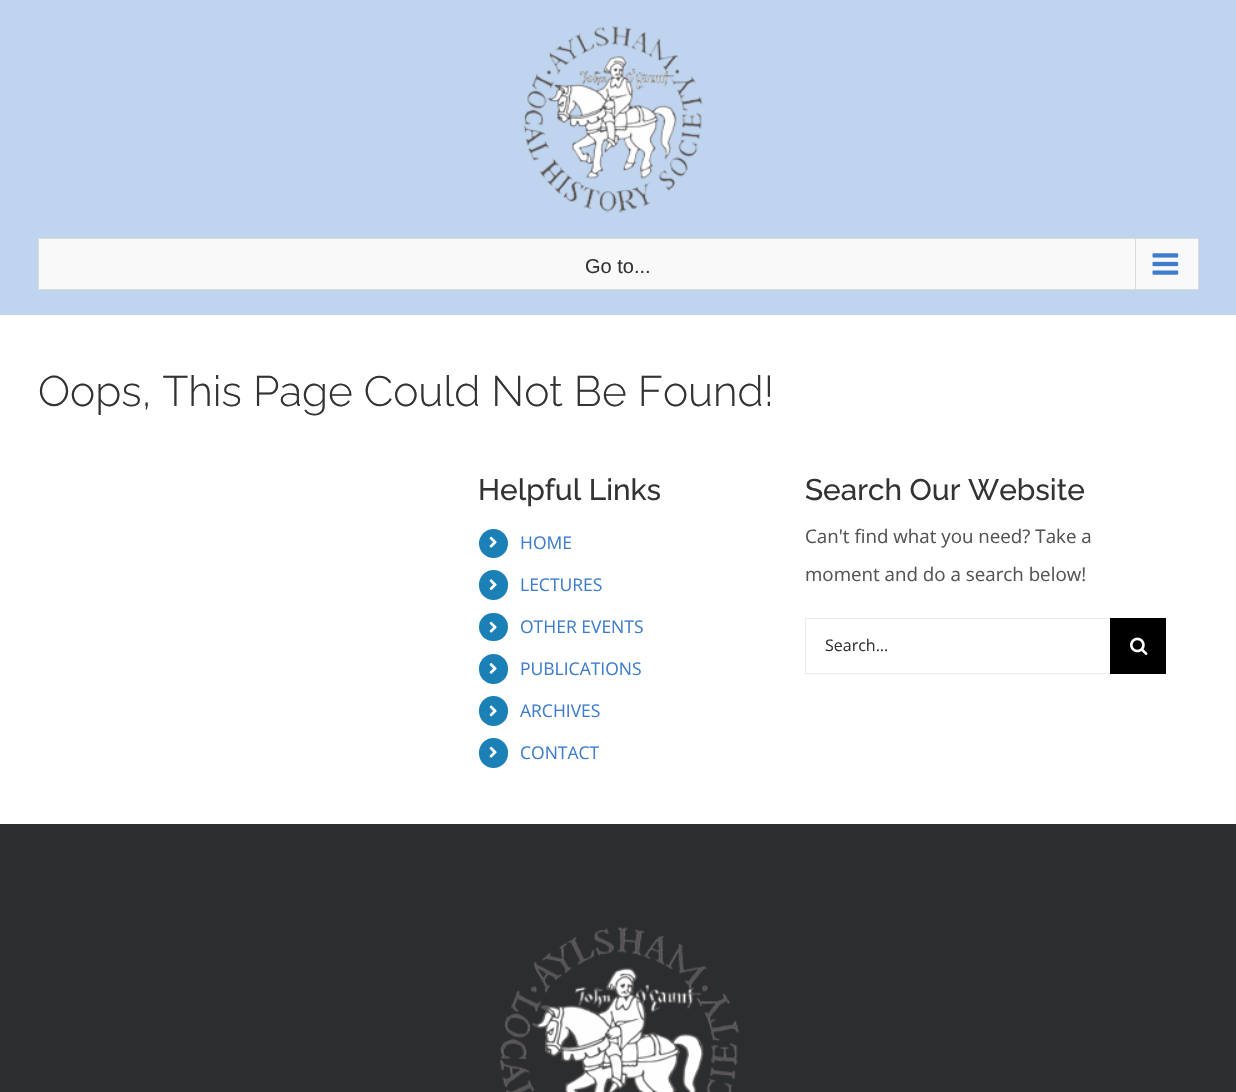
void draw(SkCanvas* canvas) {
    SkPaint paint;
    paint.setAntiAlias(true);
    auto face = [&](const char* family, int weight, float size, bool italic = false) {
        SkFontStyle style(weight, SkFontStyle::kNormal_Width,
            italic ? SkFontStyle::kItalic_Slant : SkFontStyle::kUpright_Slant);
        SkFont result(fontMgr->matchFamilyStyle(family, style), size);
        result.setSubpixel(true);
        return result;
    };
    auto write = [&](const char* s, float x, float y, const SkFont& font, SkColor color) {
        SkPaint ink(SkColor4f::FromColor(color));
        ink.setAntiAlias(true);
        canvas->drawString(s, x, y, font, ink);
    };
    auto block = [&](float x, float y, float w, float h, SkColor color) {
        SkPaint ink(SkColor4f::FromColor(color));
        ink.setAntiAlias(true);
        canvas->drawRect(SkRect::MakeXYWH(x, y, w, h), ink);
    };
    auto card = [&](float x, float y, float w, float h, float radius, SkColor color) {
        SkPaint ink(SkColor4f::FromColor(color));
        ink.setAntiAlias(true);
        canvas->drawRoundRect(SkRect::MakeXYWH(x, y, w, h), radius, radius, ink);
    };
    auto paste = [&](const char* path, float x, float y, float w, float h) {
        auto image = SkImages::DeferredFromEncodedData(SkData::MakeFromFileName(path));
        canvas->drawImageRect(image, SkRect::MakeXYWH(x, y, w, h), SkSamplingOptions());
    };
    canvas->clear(SK_ColorWHITE);
    block(0, 0, 1236, 315, SkColorSetRGB(191, 212, 238));
    paste("pic1.png", 523, 26, 180, 187);
    paint.setColor(SkColorSetRGB(249, 249, 249));
    canvas->drawRect(SkRect::MakeXYWH(38.5f, 238.5f, 1160, 51), paint);
    paint.setStyle(SkPaint::kStroke_Style);
    paint.setStrokeWidth(1);
    paint.setColor(SkColorSetRGB(218, 218, 218));
    canvas->drawRect(SkRect::MakeXYWH(38.5f, 238.5f, 1160, 51), paint);
    auto kFont1 = face("Liberation Sans", 400, 20);
    write("Go to...", 585, 273, kFont1, SkColorSetRGB(51, 51, 51));
    block(1135, 239, 1, 50, SkColorSetRGB(218, 218, 218));
    paste("pic2.png", 1152, 253, 27, 22);
    auto kFont2 = face("Raleway", 300, 42.5f);
    write("Oops, This Page Could Not Be Found!", 38, 406, kFont2, SkColorSetRGB(51, 51, 51));
    auto kFont3 = face("Raleway", 500, 29.75f);
    write("Helpful Links", 478, 500, kFont3, SkColorSetRGB(51, 51, 51));
    paint.setStyle(SkPaint::kFill_Style);
    paint.setColor(SkColorSetRGB(26, 128, 182));
    canvas->drawCircle(493.5f, 543.5f, 14.5f, paint);
    paste("pic3.png", 489, 536, 8, 12);
    auto kFont4 = face("Open Sans", 400, 17.5f);
    write("HOME", 520, 549, kFont4, SkColorSetRGB(62, 124, 204));
    card(479, 570, 29, 30, 14.5f, SkColorSetRGB(26, 128, 182));
    paste("pic4.png", 489, 579, 8, 12);
    write("LECTURES", 520, 591, kFont4, SkColorSetRGB(62, 124, 204));
    card(479, 613, 29, 28, 14, SkColorSetRGB(26, 128, 182));
    paste("pic3.png", 489, 621, 8, 12);
    write("OTHER EVENTS", 520, 633, kFont4, SkColorSetRGB(62, 124, 204));
    card(479, 654, 29, 30, 14.5f, SkColorSetRGB(26, 128, 182));
    paste("pic5.png", 489, 663, 8, 11);
    write("PUBLICATIONS", 520, 675, kFont4, SkColorSetRGB(62, 124, 204));
    card(479, 696, 29, 30, 14.5f, SkColorSetRGB(26, 128, 182));
    paste("pic6.png", 489, 705, 8, 12);
    write("ARCHIVES", 520, 717, kFont4, SkColorSetRGB(62, 124, 204));
    card(479, 738, 29, 30, 14.5f, SkColorSetRGB(26, 128, 182));
    paste("pic3.png", 489, 746, 8, 12);
    write("CONTACT", 520, 759, kFont4, SkColorSetRGB(62, 124, 204));
    write("Search Our Website", 805, 500, kFont3, SkColorSetRGB(51, 51, 51));
    auto kFont5 = face("Open Sans", 400, 18.75f);
    write("Can't find what you need? Take a", 805, 543, kFont5, SkColorSetRGB(84, 84, 84));
    write("moment and do a search below!", 805, 581, kFont5, SkColorSetRGB(84, 84, 84));
    block(805, 618, 305, 1, SkColorSetRGB(234, 234, 234));
    block(805, 673, 305, 1, SkColorSetRGB(234, 234, 234));
    block(805, 618, 1, 56, SkColorSetRGB(234, 234, 234));
    auto kFont6 = face("Open Sans", 400, 16);
    write("Search...", 825, 651, kFont6, SkColorSetRGB(51, 51, 51));
    block(1110, 618, 56, 56, SK_ColorBLACK);
    paste("pic7.png", 1130, 637, 18, 18);
    block(0, 824, 1236, 268, SkColorSetRGB(44, 45, 47));
    paste("pic8.png", 500, 927, 239, 165);
}
